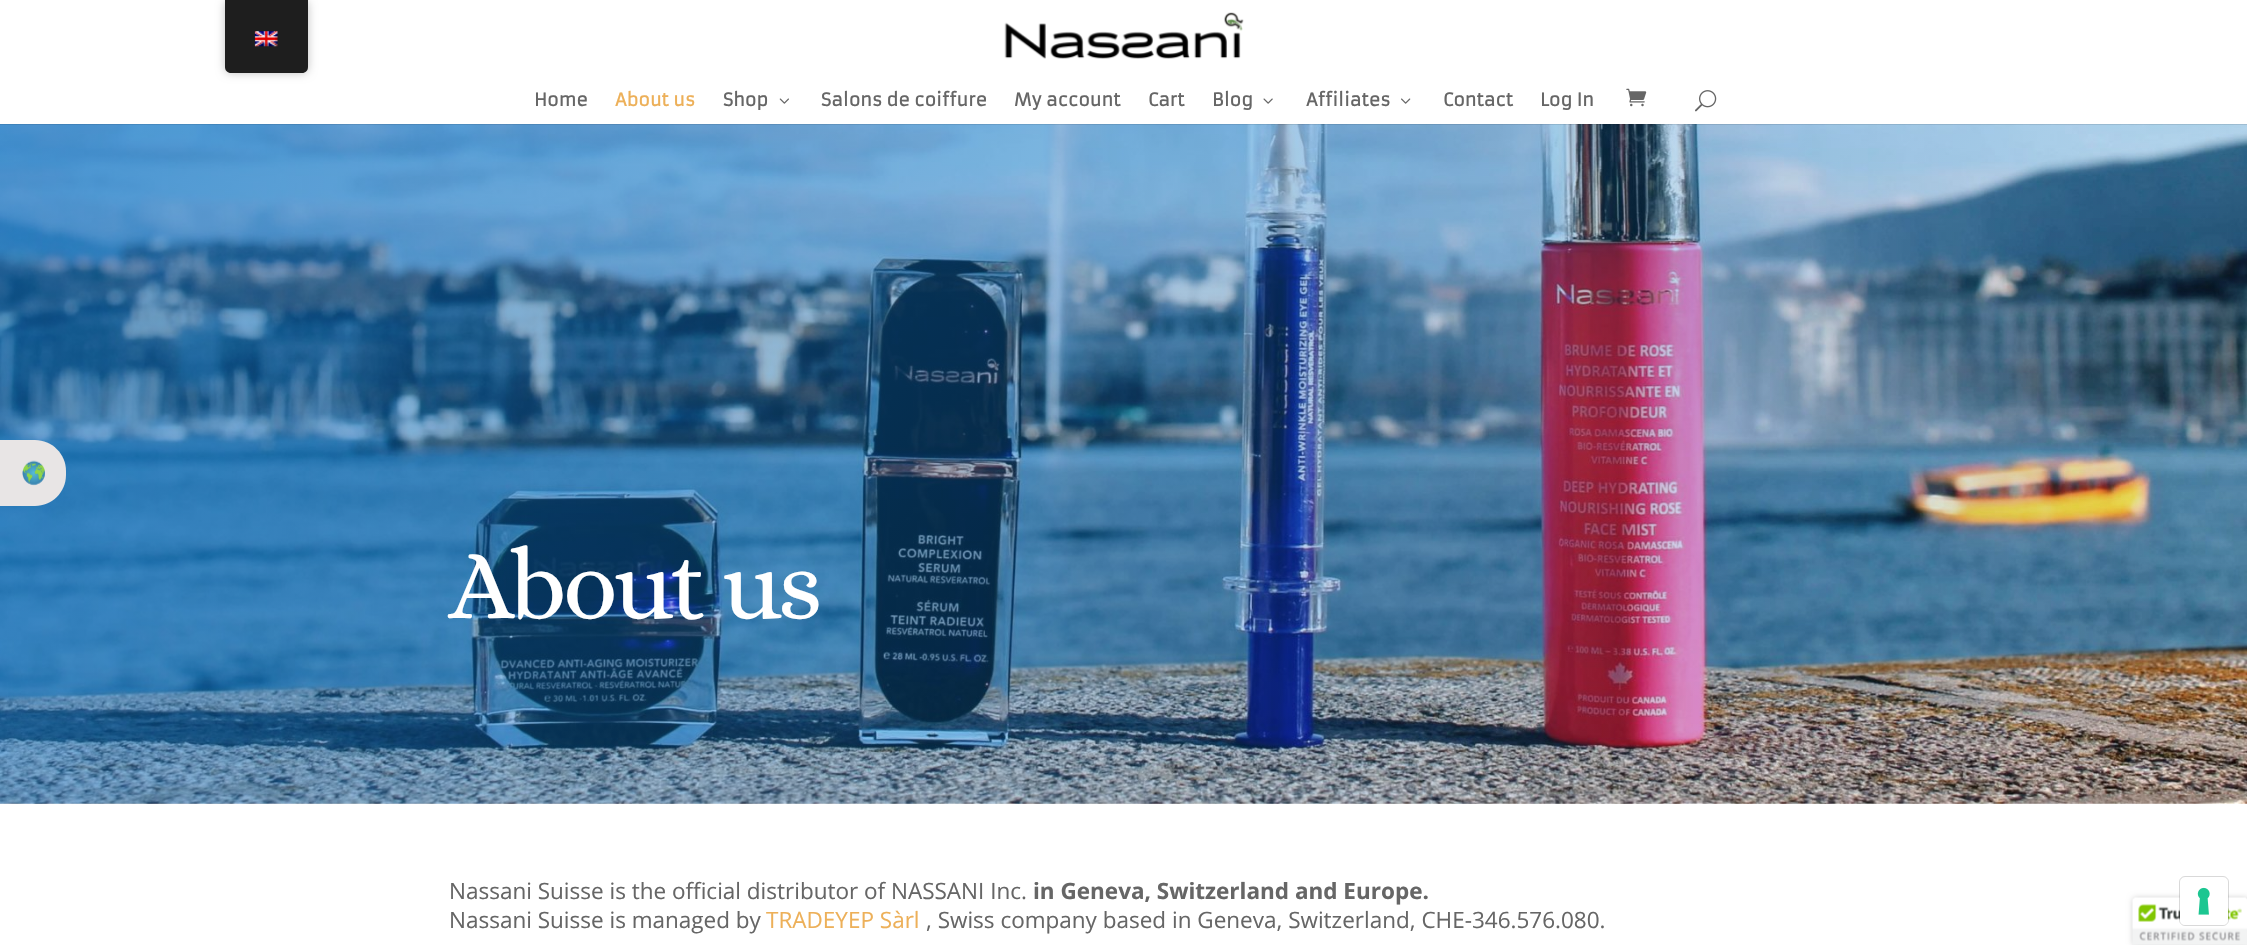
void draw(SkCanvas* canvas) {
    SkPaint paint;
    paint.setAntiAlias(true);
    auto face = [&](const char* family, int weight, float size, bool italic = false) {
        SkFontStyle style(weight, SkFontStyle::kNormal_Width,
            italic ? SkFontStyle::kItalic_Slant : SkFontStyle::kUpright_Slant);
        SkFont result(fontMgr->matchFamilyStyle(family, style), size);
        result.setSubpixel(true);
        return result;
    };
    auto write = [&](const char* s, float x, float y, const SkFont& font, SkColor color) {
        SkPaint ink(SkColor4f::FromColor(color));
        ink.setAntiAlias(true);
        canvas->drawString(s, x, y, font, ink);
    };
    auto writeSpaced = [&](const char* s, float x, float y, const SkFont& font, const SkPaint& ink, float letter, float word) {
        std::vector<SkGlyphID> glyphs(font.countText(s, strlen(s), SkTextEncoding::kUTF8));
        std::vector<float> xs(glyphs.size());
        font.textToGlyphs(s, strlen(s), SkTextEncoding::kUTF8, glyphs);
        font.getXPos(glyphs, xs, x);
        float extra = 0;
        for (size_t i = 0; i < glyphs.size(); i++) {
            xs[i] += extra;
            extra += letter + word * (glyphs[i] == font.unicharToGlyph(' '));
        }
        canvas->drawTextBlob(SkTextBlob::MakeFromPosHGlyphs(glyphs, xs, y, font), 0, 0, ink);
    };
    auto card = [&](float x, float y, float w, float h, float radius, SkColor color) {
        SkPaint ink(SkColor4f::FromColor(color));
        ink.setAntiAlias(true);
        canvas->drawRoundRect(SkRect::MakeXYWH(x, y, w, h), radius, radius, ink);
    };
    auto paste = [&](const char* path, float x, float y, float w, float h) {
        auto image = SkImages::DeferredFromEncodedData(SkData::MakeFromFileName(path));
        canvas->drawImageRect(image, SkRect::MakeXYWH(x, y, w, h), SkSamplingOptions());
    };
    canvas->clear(SK_ColorWHITE);
    paint.setColor(SkColorSetARGB(64, 0, 0, 0));
    paint.setMaskFilter(SkMaskFilter::MakeBlur(kNormal_SkBlurStyle, 5));
    canvas->drawRoundRect(SkRect::MakeXYWH(225, 0, 83, 73), 6, 6, paint);
    paint.setMaskFilter(nullptr);
    paint.setColor(SkColorSetRGB(30, 30, 30));
    canvas->drawPath(SkPathBuilder().moveTo(225, 0).lineTo(308, 0).lineTo(308, 67).cubicTo(308, 70.5f, 305.5f, 73, 302, 73).lineTo(231, 73).cubicTo(227.5f, 73, 225, 70.5f, 225, 67).close().detach(), paint);
    paste("pic1.png", 254, 31, 24, 16);
    paste("pic9.png", 0, 124, 2247, 680);
    paint.setColor(SkColorSetRGB(232, 229, 229));
    canvas->drawPath(SkPathBuilder().moveTo(0, 440).lineTo(35, 440).cubicTo(52, 440, 66, 454, 66, 471).lineTo(66, 475).cubicTo(66, 492, 52, 506, 35, 506).lineTo(0, 506).close().detach(), paint);
    paste("pic2.png", 22, 460, 23, 26);
    paint.setColor(SkColorSetARGB(26, 0, 0, 0));
    canvas->drawPath(SkPathBuilder().moveTo(0, 124).lineTo(0, 125).lineTo(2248, 125).lineTo(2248, 1).lineTo(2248, 124).close().detach(), paint);
    paste("pic3.png", 1004, 12, 240, 47);
    auto kFont1 = face("Armata", 700, 17.5f);
    write("Home", 534, 106, kFont1, SkColorSetRGB(102, 102, 102));
    write("About us", 615, 106, kFont1, SkColorSetRGB(237, 176, 89));
    write("Shop", 723, 106, kFont1, SkColorSetRGB(102, 102, 102));
    paste("pic4.png", 779, 98, 10, 6);
    write("Salons de coiffure", 821, 106, kFont1, SkColorSetRGB(102, 102, 102));
    write("My account", 1014, 106, kFont1, SkColorSetRGB(102, 102, 102));
    write("Cart", 1148, 106, kFont1, SkColorSetRGB(102, 102, 102));
    write("Blog", 1212, 106, kFont1, SkColorSetRGB(102, 102, 102));
    paste("pic5.png", 1263, 98, 10, 6);
    write("Affiliates", 1306, 106, kFont1, SkColorSetRGB(102, 102, 102));
    paste("pic6.png", 1401, 98, 10, 6);
    write("Contact", 1443, 106, kFont1, SkColorSetRGB(102, 102, 102));
    write("Log In", 1540, 106, kFont1, SkColorSetRGB(102, 102, 102));
    paste("pic7.png", 1626, 88, 21, 19);
    paste("pic8.png", 1695, 90, 22, 22);
    auto kFont2 = face("Alice", 400, 100);
    paint.setColor(SK_ColorWHITE);
    writeSpaced("About us", 449, 618, kFont2, paint, -3.75f, 0);
    auto kFont3 = face("Open Sans", 400, 22.5f);
    write("Nassani Suisse is the official distributor of NASSANI Inc.", 449, 899, kFont3, SkColorSetRGB(102, 102, 102));
    auto kFont4 = face("Open Sans", 700, 22.5f);
    write("in Geneva, Switzerland and Europe.", 1033, 899, kFont4, SkColorSetRGB(102, 102, 102));
    write("Nassani Suisse is managed by", 449, 928, kFont3, SkColorSetRGB(102, 102, 102));
    write("TRADEYEP Sàrl", 766, 928, kFont3, SkColorSetRGB(237, 176, 89));
    write(", Swiss company based in Geneva, Switzerland, CHE-346.576.080.", 926, 928, kFont3, SkColorSetRGB(102, 102, 102));
    paint.setColor(SkColorSetARGB(51, 0, 0, 0));
    paint.setMaskFilter(SkMaskFilter::MakeBlur(kNormal_SkBlurStyle, 3));
    canvas->drawRoundRect(SkRect::MakeXYWH(2133, 898, 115, 47), 2.5f, 2.5f, paint);
    paint.setMaskFilter(nullptr);
    paste("pic11.png", 2132, 897, 115, 48);
    paint.setStyle(SkPaint::kStroke_Style);
    paint.setStrokeWidth(1);
    paint.setColor(SkColorSetARGB(38, 0, 0, 0));
    canvas->drawRoundRect(SkRect::MakeXYWH(2179.5f, 876.5f, 49, 49), 5.5f, 5.5f, paint);
    card(2180, 878, 48, 47, 5, SK_ColorWHITE);
    paste("pic10.png", 2197, 887, 13, 28);
}
